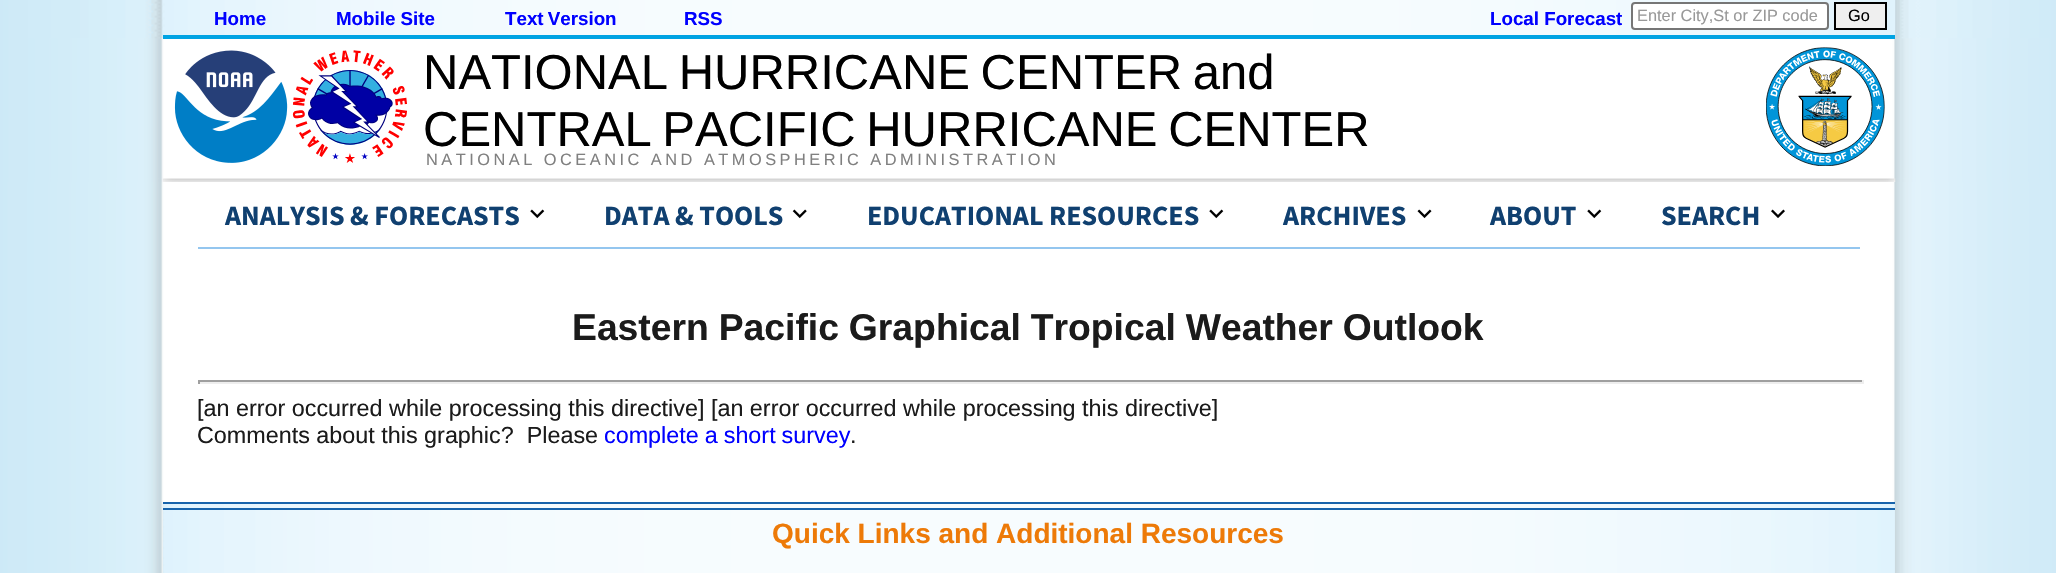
void draw(SkCanvas* canvas) {
    SkPaint paint;
    paint.setAntiAlias(true);
    auto face = [&](const char* family, int weight, float size, bool italic = false) {
        SkFontStyle style(weight, SkFontStyle::kNormal_Width,
            italic ? SkFontStyle::kItalic_Slant : SkFontStyle::kUpright_Slant);
        SkFont result(fontMgr->matchFamilyStyle(family, style), size);
        result.setSubpixel(true);
        return result;
    };
    auto write = [&](const char* s, float x, float y, const SkFont& font, SkColor color) {
        SkPaint ink(SkColor4f::FromColor(color));
        ink.setAntiAlias(true);
        canvas->drawString(s, x, y, font, ink);
    };
    auto writeSpaced = [&](const char* s, float x, float y, const SkFont& font, const SkPaint& ink, float letter, float word) {
        std::vector<SkGlyphID> glyphs(font.countText(s, strlen(s), SkTextEncoding::kUTF8));
        std::vector<float> xs(glyphs.size());
        font.textToGlyphs(s, strlen(s), SkTextEncoding::kUTF8, glyphs);
        font.getXPos(glyphs, xs, x);
        float extra = 0;
        for (size_t i = 0; i < glyphs.size(); i++) {
            xs[i] += extra;
            extra += letter + word * (glyphs[i] == font.unicharToGlyph(' '));
        }
        canvas->drawTextBlob(SkTextBlob::MakeFromPosHGlyphs(glyphs, xs, y, font), 0, 0, ink);
    };
    auto block = [&](float x, float y, float w, float h, SkColor color) {
        SkPaint ink(SkColor4f::FromColor(color));
        ink.setAntiAlias(true);
        canvas->drawRect(SkRect::MakeXYWH(x, y, w, h), ink);
    };
    auto paste = [&](const char* path, float x, float y, float w, float h) {
        auto image = SkImages::DeferredFromEncodedData(SkData::MakeFromFileName(path));
        canvas->drawImageRect(image, SkRect::MakeXYWH(x, y, w, h), SkSamplingOptions());
    };
    canvas->clear(SK_ColorWHITE);
    paste("pic3.png", 0, 38, 2056, 141);
    paste("pic1.png", 0, 0, 2056, 39);
    paste("pic4.png", 0, 38, 2056, 141);
    paste("pic2.png", 163, 0, 1733, 39);
    block(163, 35, 1732, 4, SkColorSetRGB(0, 163, 227));
    auto kFont1 = face("Liberation Sans", 700, 18.75f);
    write("Home", 214, 25, kFont1, SkColorSetRGB(0, 0, 255));
    write("Mobile Site", 336, 25, kFont1, SkColorSetRGB(0, 0, 255));
    paint.setColor(SkColorSetRGB(0, 0, 255));
    writeSpaced("Text Version", 505, 25, kFont1, paint, 0, -1);
    write("RSS", 684, 25, kFont1, SkColorSetRGB(0, 0, 255));
    write("Local Forecast", 1490, 25, kFont1, SkColorSetRGB(0, 0, 255));
    paint.setColor(SK_ColorWHITE);
    canvas->drawRoundRect(SkRect::MakeXYWH(1632, 3, 196, 26), 3, 3, paint);
    paint.setStyle(SkPaint::kStroke_Style);
    paint.setStrokeWidth(2);
    paint.setColor(SkColorSetRGB(118, 118, 118));
    canvas->drawRoundRect(SkRect::MakeXYWH(1632, 3, 196, 26), 3, 3, paint);
    auto kFont2 = face("Liberation Sans", 400, 16.35f);
    write("Enter City,St or ZIP code", 1637, 21, kFont2, SkColorSetRGB(153, 153, 153));
    paint.setStyle(SkPaint::kFill_Style);
    paint.setColor(SkColorSetRGB(239, 239, 239));
    canvas->drawRect(SkRect::MakeXYWH(1835, 3, 51, 26), paint);
    paint.setStyle(SkPaint::kStroke_Style);
    paint.setColor(SK_ColorBLACK);
    canvas->drawRect(SkRect::MakeXYWH(1835, 3, 51, 26), paint);
    write("Go", 1848, 21, kFont2, SK_ColorBLACK);
    paste("pic5.png", 174, 50, 114, 113);
    paste("pic6.png", 292, 50, 115, 113);
    auto kFont3 = face("Liberation Sans", 400, 49);
    paint.setStyle(SkPaint::kFill_Style);
    writeSpaced("NATIONAL HURRICANE CENTER and", 423, 89, kFont3, paint, 0, -3);
    writeSpaced("CENTRAL PACIFIC HURRICANE CENTER", 423, 146, kFont3, paint, 0, -3);
    paste("pic7.png", 1766, 47, 119, 119);
    paint.setColor(SkColorSetRGB(128, 128, 128));
    writeSpaced("NATIONAL OCEANIC AND ATMOSPHERIC ADMINISTRATION", 426, 165, kFont2, paint, 3.5f, 0);
    paste("pic8.png", 0, 178, 2056, 4);
    paste("pic9.png", 162, 178, 1734, 4);
    paste("pic10.png", 0, 182, 2056, 391);
    block(198, 247, 1662, 2, SkColorSetRGB(148, 198, 239));
    auto kFont4 = face("Source Sans Pro", 700, 28);
    write("ANALYSIS & FORECASTS", 225, 225, kFont4, SkColorSetRGB(16, 64, 112));
    paste("pic11.png", 530, 209, 15, 10);
    write("DATA & TOOLS", 604, 225, kFont4, SkColorSetRGB(16, 64, 112));
    paste("pic12.png", 792, 209, 15, 10);
    write("EDUCATIONAL RESOURCES", 867, 225, kFont4, SkColorSetRGB(16, 64, 112));
    paste("pic11.png", 1209, 209, 15, 10);
    write("ARCHIVES", 1283, 225, kFont4, SkColorSetRGB(16, 64, 112));
    paste("pic13.png", 1417, 209, 15, 10);
    write("ABOUT", 1490, 225, kFont4, SkColorSetRGB(16, 64, 112));
    paste("pic11.png", 1587, 209, 15, 10);
    write("SEARCH", 1661, 225, kFont4, SkColorSetRGB(16, 64, 112));
    paste("pic14.png", 1771, 209, 14, 9);
    auto kFont5 = face("Liberation Sans", 700, 37.3f);
    paint.setColor(SkColorSetRGB(27, 27, 27));
    writeSpaced("Eastern Pacific Graphical Tropical Weather Outlook", 572, 340, kFont5, paint, 0, -0.5f);
    block(198, 380, 1666, 2, SkColorSetRGB(159, 159, 159));
    block(1862, 380, 2, 4, SkColorSetRGB(238, 238, 238));
    block(198, 382, 1666, 2, SkColorSetRGB(238, 238, 238));
    block(198, 380, 2, 4, SkColorSetRGB(159, 159, 159));
    auto kFont6 = face("Liberation Sans", 400, 23.35f);
    write("[an error occurred while processing this directive] [an error occurred while processing this directive]", 197, 416, kFont6, SkColorSetRGB(27, 27, 27));
    write("Comments about this graphic?  Please", 197, 443, kFont6, SkColorSetRGB(27, 27, 27));
    paint.setColor(SkColorSetRGB(0, 0, 255));
    writeSpaced("complete a short survey", 604, 443, kFont6, paint, 0, -0.5f);
    write(".", 850, 443, kFont6, SkColorSetRGB(27, 27, 27));
    paste("pic15.png", 162, 502, 1733, 71);
    block(163, 502, 1732, 2, SkColorSetRGB(23, 99, 171));
    block(163, 508, 1732, 2, SkColorSetRGB(23, 99, 171));
    auto kFont7 = face("Liberation Sans", 700, 28);
    write("Quick Links and Additional Resources", 772, 543, kFont7, SkColorSetRGB(237, 122, 8));
}
